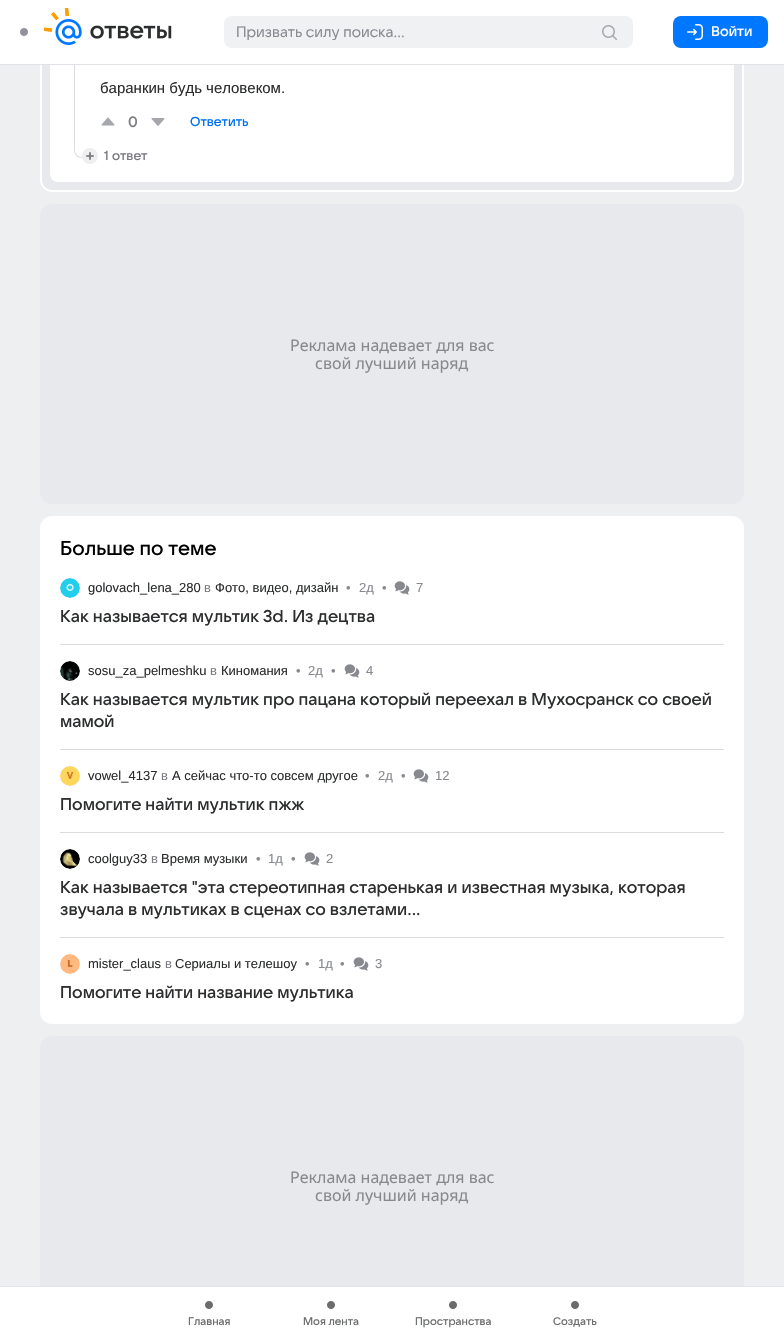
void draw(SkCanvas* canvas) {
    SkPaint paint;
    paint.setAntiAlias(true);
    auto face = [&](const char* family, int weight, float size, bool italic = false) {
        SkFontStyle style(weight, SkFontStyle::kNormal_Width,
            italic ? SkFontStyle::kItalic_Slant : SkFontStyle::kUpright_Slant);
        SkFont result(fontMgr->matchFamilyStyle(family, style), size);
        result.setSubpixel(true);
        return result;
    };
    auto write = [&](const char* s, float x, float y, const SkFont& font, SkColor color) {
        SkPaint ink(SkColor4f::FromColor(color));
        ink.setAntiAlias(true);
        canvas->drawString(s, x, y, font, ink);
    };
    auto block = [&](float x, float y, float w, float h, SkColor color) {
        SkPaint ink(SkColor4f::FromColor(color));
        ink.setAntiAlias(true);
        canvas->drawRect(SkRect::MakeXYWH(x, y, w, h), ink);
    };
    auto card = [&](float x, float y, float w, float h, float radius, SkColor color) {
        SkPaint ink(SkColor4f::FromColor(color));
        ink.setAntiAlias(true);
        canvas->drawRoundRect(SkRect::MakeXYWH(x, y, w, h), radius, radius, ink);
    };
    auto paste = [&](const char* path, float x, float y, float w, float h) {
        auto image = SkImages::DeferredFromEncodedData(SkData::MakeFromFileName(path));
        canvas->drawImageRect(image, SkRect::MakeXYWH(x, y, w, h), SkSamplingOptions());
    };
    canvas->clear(SkColorSetRGB(238, 239, 241));
    card(40, -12, 704, 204, 12, SK_ColorWHITE);
    card(42, -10, 700, 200, 10, SkColorSetRGB(231, 233, 236));
    card(50, 24, 684, 158, 8, SK_ColorWHITE);
    block(0, 0, 784, 64, SK_ColorWHITE);
    block(0, 64, 784, 1, SkColorSetRGB(224, 226, 232));
    paste("pic1.png", 20, 28, 8, 8);
    paste("pic2.png", 44, 8, 128, 37);
    card(224, 16, 409, 32, 8, SkColorSetRGB(240, 241, 243));
    auto kFont1 = face("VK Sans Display", 400, 15);
    write("Призвать силу поиска...", 236, 37, kFont1, SkColorSetRGB(135, 137, 143));
    paste("pic3.png", 602, 25, 15, 15);
    card(673, 16, 95, 32, 8, SkColorSetRGB(0, 119, 255));
    paste("pic4.png", 687, 24, 16, 16);
    auto kFont2 = face("VK Sans Display", 500, 14);
    write("Войти", 711, 36, kFont2, SK_ColorWHITE);
    block(74, 65, 1, 61, SkColorSetRGB(218, 220, 224));
    auto kFont3 = face("Liberation Sans", 400, 15);
    write("баранкин будь человеком.", 100, 93, kFont3, SkColorSetRGB(44, 45, 46));
    paste("pic5.png", 101, 117, 14, 9);
    auto kFont4 = face("VK Sans Display", 500, 15);
    write("0", 128, 127, kFont4, SkColorSetRGB(121, 122, 128));
    paste("pic6.png", 151, 118, 14, 8);
    auto kFont5 = face("VK Sans Display", 500, 13);
    write("Ответить", 190, 126, kFont5, SkColorSetRGB(0, 112, 240));
    paint.setColor(SkColorSetRGB(218, 220, 224));
    canvas->drawPath(SkPathBuilder(SkPathFillType::kEvenOdd).moveTo(74, 126).lineTo(82, 126).lineTo(82, 158).cubicTo(77.5f, 158, 74, 154.5f, 74, 150).close().moveTo(75, 126).lineTo(82, 126).lineTo(82, 157).cubicTo(78, 157, 75, 154, 75, 150).close().detach(), paint);
    paste("pic7.png", 82, 148, 16, 16);
    write("1 ответ", 104, 160, kFont5, SkColorSetRGB(121, 122, 128));
    card(40, 204, 704, 300, 12, SkColorSetRGB(231, 233, 237));
    auto kFont6 = face("Noto Sans", 400, 16);
    write("Реклама надевает для вас", 290, 351, kFont6, SkColorSetRGB(135, 137, 143));
    write("свой лучший наряд", 315, 369, kFont6, SkColorSetRGB(135, 137, 143));
    card(40, 516, 704, 508, 12, SK_ColorWHITE);
    auto kFont7 = face("VK Sans Display", 500, 20);
    write("Больше по теме", 60, 555, kFont7, SK_ColorBLACK);
    paint.setColor(SkColorSetRGB(240, 241, 243));
    canvas->drawCircle(70, 588, 10, paint);
    paste("pic8.png", 60, 578, 20, 20);
    auto kFont8 = face("Liberation Sans", 400, 13);
    write("golovach_lena_280", 88, 592, kFont8, SkColorSetRGB(44, 45, 46));
    write("в", 204, 592, kFont8, SkColorSetRGB(121, 122, 128));
    write("Фото, видео, дизайн", 215, 592, kFont8, SkColorSetRGB(44, 45, 46));
    write("•", 346, 592, kFont8, SkColorSetRGB(135, 137, 143));
    write("2д", 359, 592, kFont8, SkColorSetRGB(135, 137, 143));
    write("•", 382, 592, kFont8, SkColorSetRGB(135, 137, 143));
    paste("pic9.png", 394, 581, 16, 14);
    write("7", 416, 592, kFont8, SkColorSetRGB(135, 137, 143));
    auto kFont9 = face("VK Sans Display", 500, 17);
    write("Как называется мультик 3d. Из децтва", 60, 622, kFont9, SkColorSetRGB(44, 45, 46));
    block(60, 644, 664, 1, SkColorSetRGB(218, 220, 224));
    canvas->drawCircle(70, 671, 10, paint);
    paste("pic10.png", 60, 661, 20, 20);
    write("sosu_za_pelmeshku", 88, 675, kFont8, SkColorSetRGB(44, 45, 46));
    write("в", 210, 675, kFont8, SkColorSetRGB(121, 122, 128));
    write("Киномания", 221, 675, kFont8, SkColorSetRGB(44, 45, 46));
    write("•", 296, 675, kFont8, SkColorSetRGB(135, 137, 143));
    write("2д", 308, 675, kFont8, SkColorSetRGB(135, 137, 143));
    write("•", 331, 675, kFont8, SkColorSetRGB(135, 137, 143));
    paste("pic9.png", 344, 664, 16, 14);
    write("4", 366, 675, kFont8, SkColorSetRGB(135, 137, 143));
    write("Как называется мультик про пацана который переехал в Мухосранск со своей", 60, 705, kFont9, SkColorSetRGB(44, 45, 46));
    write("мамой", 60, 727, kFont9, SkColorSetRGB(44, 45, 46));
    block(60, 749, 664, 1, SkColorSetRGB(218, 220, 224));
    canvas->drawCircle(70, 776, 10, paint);
    paste("pic11.png", 60, 766, 20, 20);
    write("vowel_4137", 88, 780, kFont8, SkColorSetRGB(44, 45, 46));
    write("в", 161, 780, kFont8, SkColorSetRGB(121, 122, 128));
    write("А сейчас что-то совсем другое", 172, 780, kFont8, SkColorSetRGB(44, 45, 46));
    write("•", 365, 780, kFont8, SkColorSetRGB(135, 137, 143));
    write("2д", 378, 780, kFont8, SkColorSetRGB(135, 137, 143));
    write("•", 401, 780, kFont8, SkColorSetRGB(135, 137, 143));
    paste("pic9.png", 413, 769, 16, 14);
    write("12", 435, 780, kFont8, SkColorSetRGB(135, 137, 143));
    write("Помогите найти мультик пжж", 60, 810, kFont9, SkColorSetRGB(44, 45, 46));
    block(60, 832, 664, 1, SkColorSetRGB(218, 220, 224));
    canvas->drawCircle(70, 859, 10, paint);
    paste("pic12.png", 60, 849, 20, 20);
    write("coolguy33", 88, 863, kFont8, SkColorSetRGB(44, 45, 46));
    write("в", 151, 863, kFont8, SkColorSetRGB(121, 122, 128));
    write("Время музыки", 161, 863, kFont8, SkColorSetRGB(44, 45, 46));
    write("•", 256, 863, kFont8, SkColorSetRGB(135, 137, 143));
    write("1д", 268, 863, kFont8, SkColorSetRGB(135, 137, 143));
    write("•", 291, 863, kFont8, SkColorSetRGB(135, 137, 143));
    paste("pic9.png", 304, 852, 16, 14);
    write("2", 326, 863, kFont8, SkColorSetRGB(135, 137, 143));
    write("Как называется \"эта стереотипная старенькая и известная музыка, которая", 60, 893, kFont9, SkColorSetRGB(44, 45, 46));
    write("звучала в мультиках в сценах со взлетами...", 60, 915, kFont9, SkColorSetRGB(44, 45, 46));
    block(60, 937, 664, 1, SkColorSetRGB(218, 220, 224));
    canvas->drawCircle(70, 964, 10, paint);
    paste("pic13.png", 60, 954, 20, 20);
    write("mister_claus", 88, 968, kFont8, SkColorSetRGB(44, 45, 46));
    write("в", 165, 968, kFont8, SkColorSetRGB(121, 122, 128));
    write("Сериалы и телешоу", 175, 968, kFont8, SkColorSetRGB(44, 45, 46));
    write("•", 305, 968, kFont8, SkColorSetRGB(135, 137, 143));
    write("1д", 318, 968, kFont8, SkColorSetRGB(135, 137, 143));
    write("•", 340, 968, kFont8, SkColorSetRGB(135, 137, 143));
    paste("pic9.png", 353, 957, 16, 14);
    write("3", 375, 968, kFont8, SkColorSetRGB(135, 137, 143));
    write("Помогите найти название мультика", 60, 998, kFont9, SkColorSetRGB(44, 45, 46));
    card(40, 1036, 704, 300, 12, SkColorSetRGB(231, 233, 237));
    write("Реклама надевает для вас", 290, 1183, kFont6, SkColorSetRGB(135, 137, 143));
    write("свой лучший наряд", 315, 1201, kFont6, SkColorSetRGB(135, 137, 143));
    block(0, 1287, 784, 52, SK_ColorWHITE);
    block(0, 1286, 784, 1, SkColorSetRGB(224, 226, 232));
    paste("pic14.png", 205, 1301, 8, 8);
    auto kFont10 = face("VK Sans Display", 500, 11);
    write("Главная", 188, 1325, kFont10, SkColorSetRGB(107, 108, 109));
    paste("pic14.png", 327, 1301, 8, 8);
    write("Моя лента", 303, 1325, kFont10, SkColorSetRGB(107, 108, 109));
    paste("pic14.png", 449, 1301, 8, 8);
    write("Пространства", 415, 1325, kFont10, SkColorSetRGB(107, 108, 109));
    paste("pic14.png", 571, 1301, 8, 8);
    write("Создать", 553, 1325, kFont10, SkColorSetRGB(107, 108, 109));
}
